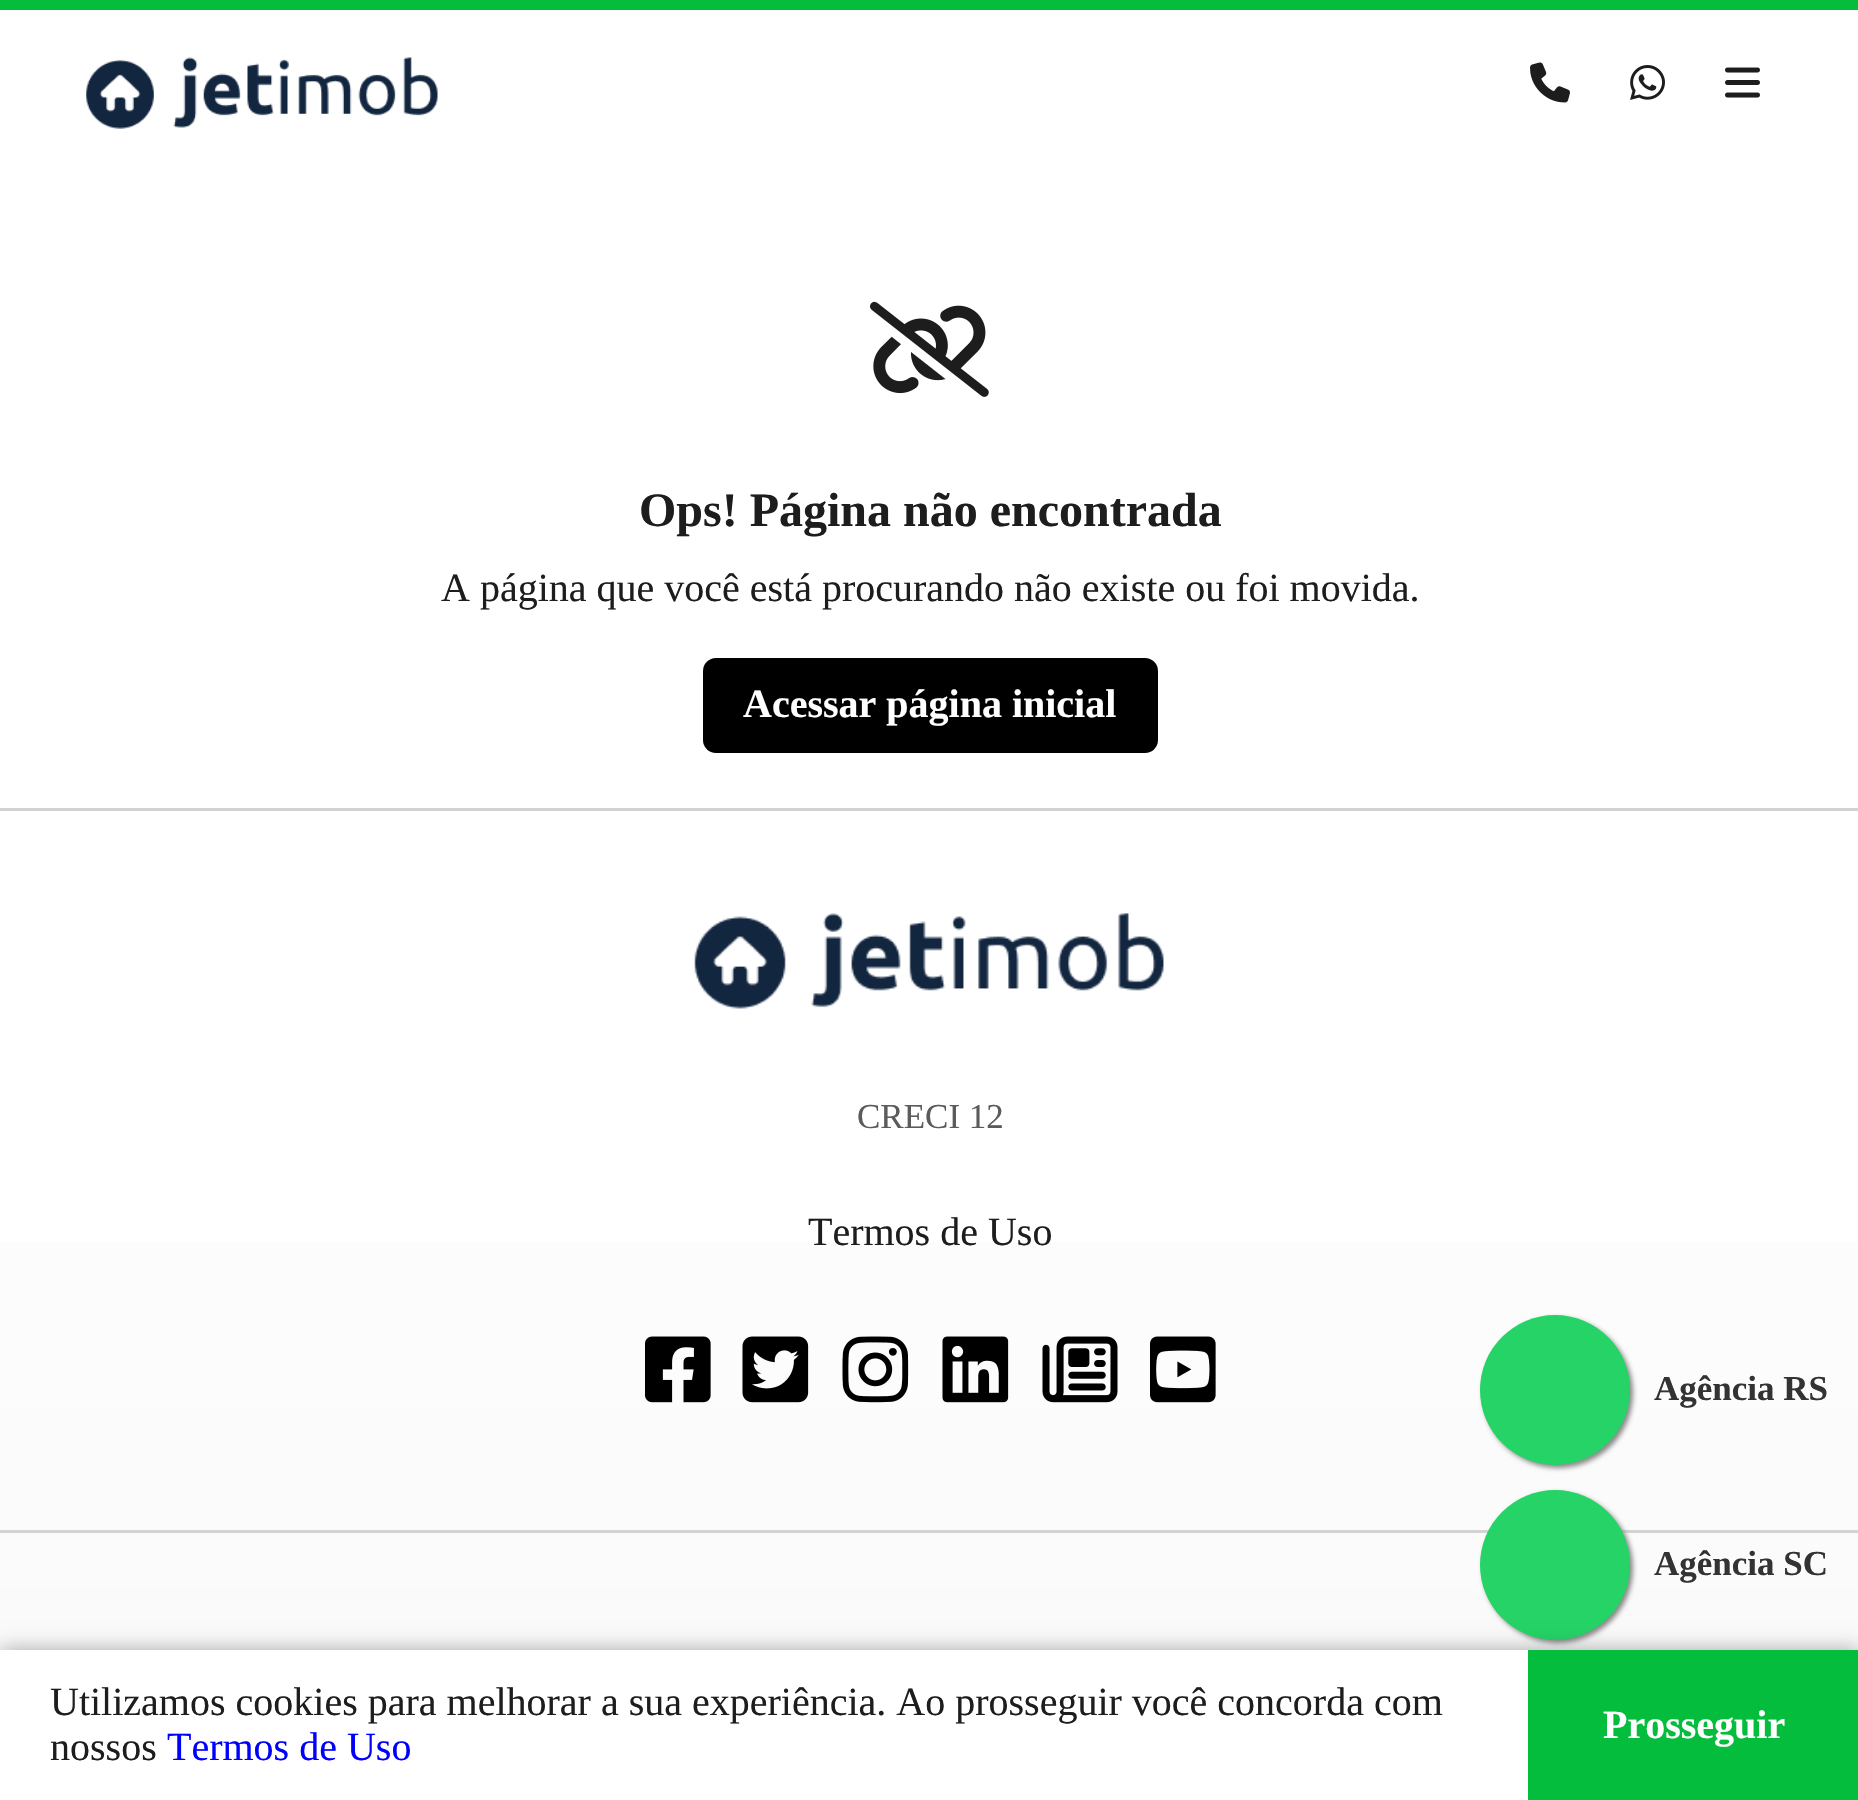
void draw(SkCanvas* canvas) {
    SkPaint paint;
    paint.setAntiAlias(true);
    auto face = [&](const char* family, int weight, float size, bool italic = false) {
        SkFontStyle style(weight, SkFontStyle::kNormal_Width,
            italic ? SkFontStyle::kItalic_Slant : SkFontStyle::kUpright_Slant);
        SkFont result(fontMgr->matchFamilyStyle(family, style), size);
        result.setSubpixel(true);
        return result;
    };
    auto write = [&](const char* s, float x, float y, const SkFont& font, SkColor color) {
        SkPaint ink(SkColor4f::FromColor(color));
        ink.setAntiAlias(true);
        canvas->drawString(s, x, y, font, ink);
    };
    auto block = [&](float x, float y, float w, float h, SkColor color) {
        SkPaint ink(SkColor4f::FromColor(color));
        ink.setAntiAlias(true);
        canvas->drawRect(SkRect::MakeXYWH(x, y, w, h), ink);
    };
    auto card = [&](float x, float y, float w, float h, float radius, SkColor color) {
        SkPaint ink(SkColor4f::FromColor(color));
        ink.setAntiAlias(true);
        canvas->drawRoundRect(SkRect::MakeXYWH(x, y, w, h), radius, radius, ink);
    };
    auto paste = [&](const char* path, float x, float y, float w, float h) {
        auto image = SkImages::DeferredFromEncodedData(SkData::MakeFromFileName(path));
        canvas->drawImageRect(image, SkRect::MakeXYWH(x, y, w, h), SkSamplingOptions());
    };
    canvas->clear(SK_ColorWHITE);
    block(0, 0, 1858, 10, SkColorSetRGB(5, 189, 60));
    paste("pic1.png", 86, 57, 352, 72);
    paste("pic2.png", 1530, 62, 40, 41);
    paste("pic3.png", 1630, 65, 35, 35);
    paste("pic4.png", 1725, 67, 35, 31);
    paste("pic5.png", 870, 301, 119, 96);
    auto kFont1 = face("Liberation Serif", 700, 48);
    write("Ops! Página não encontrada", 639, 526, kFont1, SkColorSetRGB(29, 29, 29));
    auto kFont2 = face("Liberation Serif", 400, 40);
    write("A página que você está procurando não existe ou foi movida.", 441, 601, kFont2, SkColorSetRGB(29, 29, 29));
    card(703, 658, 455, 95, 13, SK_ColorBLACK);
    auto kFont3 = face("Liberation Serif", 700, 40);
    write("Acessar página inicial", 743, 717, kFont3, SK_ColorWHITE);
    {
        const SkColor colors[] = {SK_ColorWHITE, SkColorSetRGB(250, 250, 250)};
        const float stops[] = {0, 1};
        const SkPoint ends[] = {{930, 810}, {930, 1673}};
        paint.setShader(SkGradientShader::MakeLinear(ends, colors, stops, 2, SkTileMode::kClamp));
        paint.setAlpha(255);
    }
    canvas->drawRect(SkRect::MakeXYWH(0, 1242, 1858, 408), paint);
    block(0, 808, 1858, 3, SkColorSetRGB(211, 211, 211));
    paste("pic6.png", 694, 913, 470, 96);
    auto kFont4 = face("Liberation Serif", 400, 35);
    write("CRECI 12", 857, 1128, kFont4, SkColorSetRGB(91, 91, 91));
    write("Termos de Uso", 808, 1245, kFont2, SkColorSetRGB(29, 29, 29));
    paste("pic7.png", 645, 1336, 66, 67);
    paste("pic8.png", 742, 1336, 67, 67);
    paste("pic9.png", 842, 1336, 67, 67);
    paste("pic10.png", 942, 1336, 67, 67);
    paste("pic11.png", 1042, 1336, 76, 67);
    paste("pic12.png", 1150, 1336, 66, 67);
    block(0, 1530, 1858, 3, SkColorSetRGB(211, 211, 211));
    paint.setShader(nullptr);
    paint.setColor(SkColorSetRGB(136, 136, 136));
    paint.setMaskFilter(SkMaskFilter::MakeBlur(kNormal_SkBlurStyle, 2.5f));
    canvas->drawRoundRect(SkRect::MakeXYWH(1483, 1318, 150, 150), 75, 75, paint);
    paint.setMaskFilter(nullptr);
    paint.setColor(SkColorSetRGB(37, 211, 102));
    canvas->drawCircle(1555, 1390, 75, paint);
    auto kFont5 = face("Liberation Serif", 700, 35);
    write("Agência RS", 1654, 1400, kFont5, SkColorSetRGB(51, 51, 51));
    paint.setColor(SkColorSetRGB(136, 136, 136));
    paint.setMaskFilter(SkMaskFilter::MakeBlur(kNormal_SkBlurStyle, 2.5f));
    canvas->drawRoundRect(SkRect::MakeXYWH(1483, 1493, 150, 150), 75, 75, paint);
    paint.setMaskFilter(nullptr);
    paint.setColor(SkColorSetRGB(37, 211, 102));
    canvas->drawCircle(1555, 1565, 75, paint);
    write("Agência SC", 1654, 1575, kFont5, SkColorSetRGB(51, 51, 51));
    paint.setColor(SkColorSetARGB(87, 0, 0, 0));
    paint.setMaskFilter(SkMaskFilter::MakeBlur(kNormal_SkBlurStyle, 10));
    canvas->drawRect(SkRect::MakeXYWH(0, 1650, 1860, 150), paint);
    paint.setMaskFilter(nullptr);
    block(0, 1650, 1528, 150, SK_ColorWHITE);
    write("Utilizamos cookies para melhorar a sua experiência. Ao prosseguir você concorda com", 50, 1715, kFont2, SkColorSetRGB(29, 29, 29));
    write("nossos", 50, 1760, kFont2, SkColorSetRGB(29, 29, 29));
    write("Termos de Uso", 167, 1760, kFont2, SkColorSetRGB(0, 0, 255));
    block(1528, 1650, 330, 150, SkColorSetRGB(5, 189, 60));
    write("Prosseguir", 1603, 1738, kFont3, SK_ColorWHITE);
}
